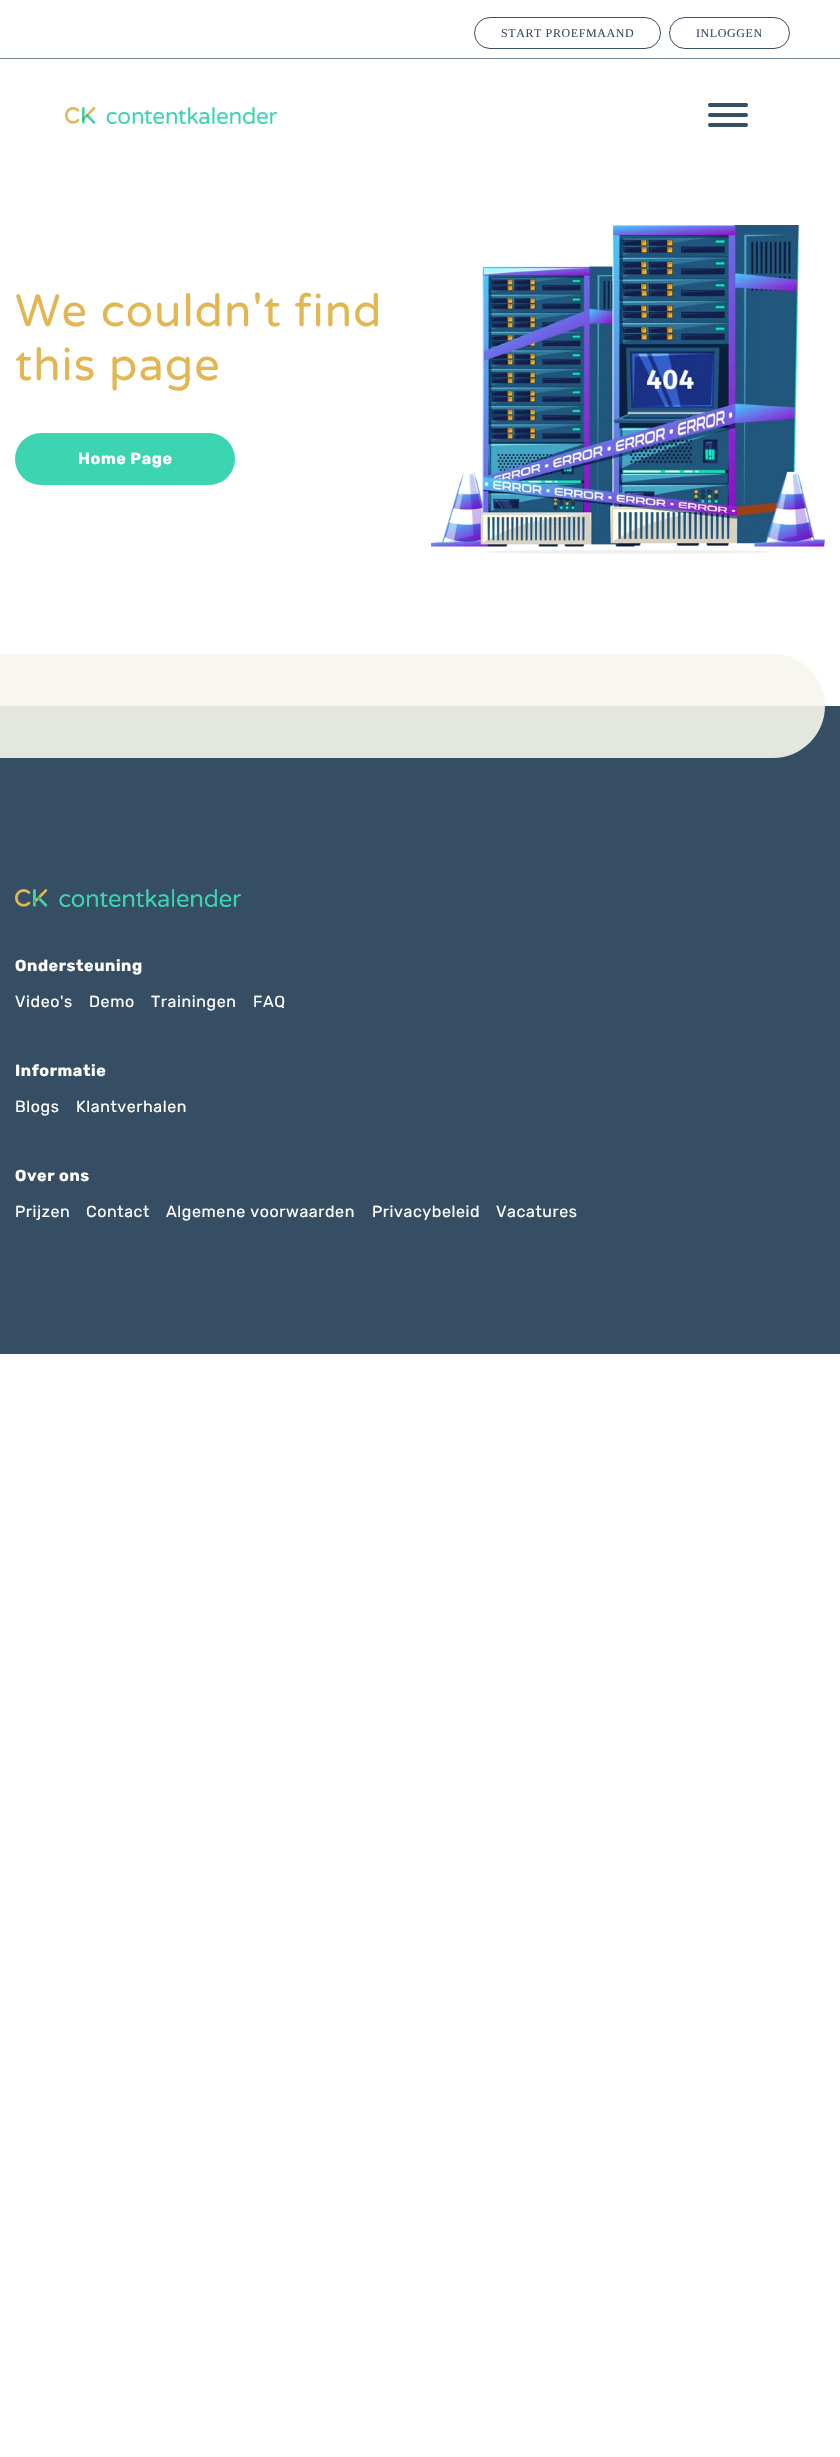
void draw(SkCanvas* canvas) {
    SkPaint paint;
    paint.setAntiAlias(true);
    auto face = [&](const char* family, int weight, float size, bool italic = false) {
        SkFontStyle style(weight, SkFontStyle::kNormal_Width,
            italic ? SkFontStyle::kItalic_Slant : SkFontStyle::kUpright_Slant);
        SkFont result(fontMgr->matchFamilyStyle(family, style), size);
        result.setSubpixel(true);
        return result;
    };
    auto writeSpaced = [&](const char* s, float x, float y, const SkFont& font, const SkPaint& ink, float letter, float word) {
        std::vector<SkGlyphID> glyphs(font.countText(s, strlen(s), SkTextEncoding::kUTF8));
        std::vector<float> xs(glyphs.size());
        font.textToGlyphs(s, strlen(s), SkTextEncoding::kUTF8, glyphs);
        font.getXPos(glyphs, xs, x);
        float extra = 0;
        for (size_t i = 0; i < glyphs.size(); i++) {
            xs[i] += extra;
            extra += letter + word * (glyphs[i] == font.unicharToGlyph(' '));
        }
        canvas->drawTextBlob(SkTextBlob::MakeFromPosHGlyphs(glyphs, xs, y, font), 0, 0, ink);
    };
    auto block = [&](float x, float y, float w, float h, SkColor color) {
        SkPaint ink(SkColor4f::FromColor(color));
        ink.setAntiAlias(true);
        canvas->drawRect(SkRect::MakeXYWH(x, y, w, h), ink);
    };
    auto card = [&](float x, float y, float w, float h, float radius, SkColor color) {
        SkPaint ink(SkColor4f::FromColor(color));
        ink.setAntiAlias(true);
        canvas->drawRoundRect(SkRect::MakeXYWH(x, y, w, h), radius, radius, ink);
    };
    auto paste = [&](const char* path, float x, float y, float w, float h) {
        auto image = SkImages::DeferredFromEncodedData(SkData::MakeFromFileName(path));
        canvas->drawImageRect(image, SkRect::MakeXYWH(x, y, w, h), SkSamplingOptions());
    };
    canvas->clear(SK_ColorWHITE);
    block(0, 58, 840, 1, SkColorSetRGB(119, 135, 150));
    paint.setStyle(SkPaint::kStroke_Style);
    paint.setStrokeWidth(1);
    paint.setColor(SkColorSetRGB(54, 78, 100));
    canvas->drawRoundRect(SkRect::MakeXYWH(474.5f, 17.5f, 186, 31), 15.5f, 15.5f, paint);
    auto kFont1 = face("Liberation Serif", 400, 12);
    paint.setStyle(SkPaint::kFill_Style);
    writeSpaced("START PROEFMAAND", 501, 37, kFont1, paint, 0.6f, 0);
    paint.setStyle(SkPaint::kStroke_Style);
    canvas->drawRoundRect(SkRect::MakeXYWH(669.5f, 17.5f, 120, 31), 15.5f, 15.5f, paint);
    paint.setStyle(SkPaint::kFill_Style);
    writeSpaced("INLOGGEN", 696, 37, kFont1, paint, 0.6f, 0);
    paste("pic1.png", 65, 107, 212, 17);
    card(708, 113, 40, 4, 2, SkColorSetRGB(54, 78, 100));
    card(708, 103, 40, 4, 2, SkColorSetRGB(54, 78, 100));
    card(708, 123, 40, 4, 2, SkColorSetRGB(54, 78, 100));
    auto kFont2 = face("Varela Round", 400, 45);
    paint.setColor(SkColorSetRGB(226, 182, 80));
    writeSpaced("We couldn't find", 15, 326, kFont2, paint, 1, 0);
    writeSpaced("this page", 15, 380, kFont2, paint, 1, 0);
    card(15, 433, 220, 52, 26, SkColorSetRGB(61, 212, 178));
    auto kFont3 = face("Rubik", 700, 16);
    paint.setColor(SK_ColorWHITE);
    writeSpaced("Home Page", 78, 464, kFont3, paint, 0.6f, 0);
    paste("pic2.png", 431, 225, 394, 329);
    block(0, 706, 840, 648, SkColorSetRGB(54, 78, 100));
    paint.setColor(SkColorSetARGB(230, 246, 246, 237));
    canvas->drawPath(SkPathBuilder().moveTo(-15, 654).lineTo(773, 654).cubicTo(801.5f, 654, 825, 677.5f, 825, 706).cubicTo(825, 734.5f, 801.5f, 758, 773, 758).lineTo(-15, 758).close().detach(), paint);
    paste("pic3.png", 15, 889, 226, 18);
    paint.setColor(SK_ColorWHITE);
    writeSpaced("Ondersteuning", 15, 971, kFont3, paint, 0.6f, 0);
    auto kFont4 = face("Rubik", 400, 16);
    writeSpaced("Video's", 15, 1007, kFont4, paint, 0.6f, 0);
    writeSpaced("Demo", 89, 1007, kFont4, paint, 0.6f, 0);
    writeSpaced("Trainingen", 151, 1007, kFont4, paint, 0.6f, 0);
    writeSpaced("FAQ", 253, 1007, kFont4, paint, 0.6f, 0);
    writeSpaced("Informatie", 15, 1076, kFont3, paint, 0.6f, 0);
    writeSpaced("Blogs", 15, 1112, kFont4, paint, 0.6f, 0);
    writeSpaced("Klantverhalen", 76, 1112, kFont4, paint, 0.6f, 0);
    writeSpaced("Over ons", 15, 1181, kFont3, paint, 0.6f, 0);
    writeSpaced("Prijzen", 15, 1217, kFont4, paint, 0.6f, 0);
    writeSpaced("Contact", 86, 1217, kFont4, paint, 0.6f, 0);
    writeSpaced("Algemene voorwaarden", 166, 1217, kFont4, paint, 0.6f, 0);
    writeSpaced("Privacybeleid", 372, 1217, kFont4, paint, 0.6f, 0);
    writeSpaced("Vacatures", 496, 1217, kFont4, paint, 0.6f, 0);
}
